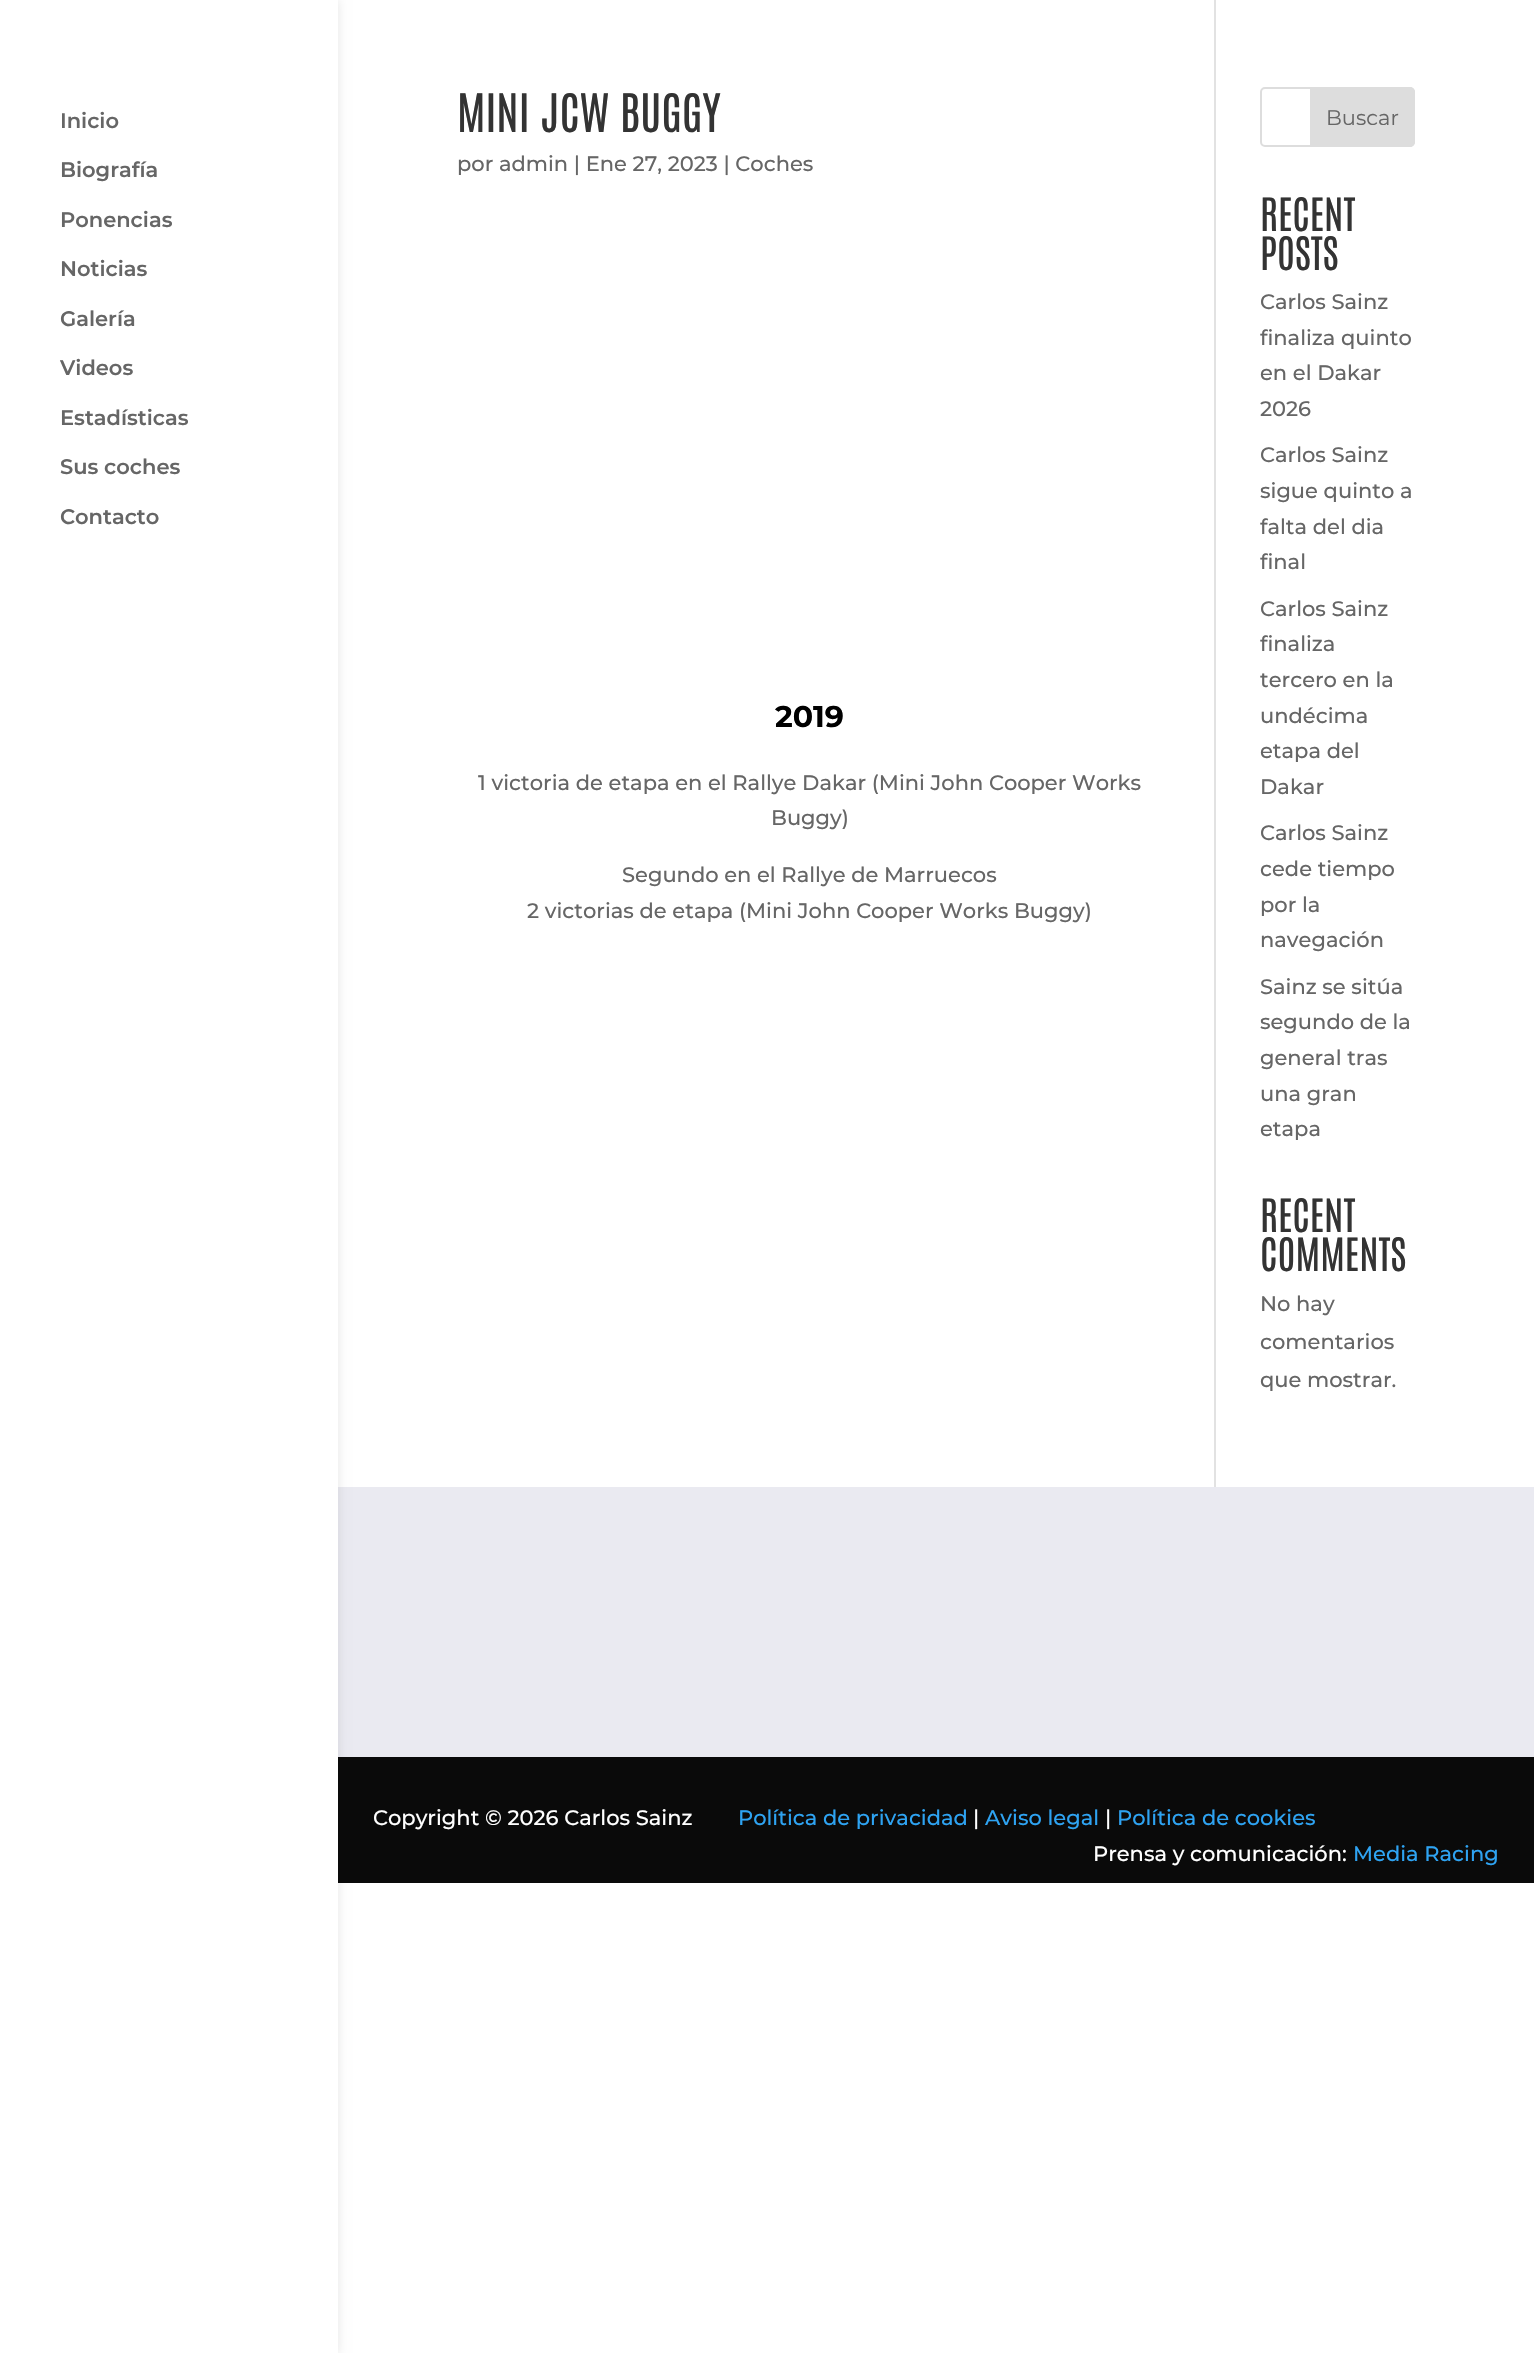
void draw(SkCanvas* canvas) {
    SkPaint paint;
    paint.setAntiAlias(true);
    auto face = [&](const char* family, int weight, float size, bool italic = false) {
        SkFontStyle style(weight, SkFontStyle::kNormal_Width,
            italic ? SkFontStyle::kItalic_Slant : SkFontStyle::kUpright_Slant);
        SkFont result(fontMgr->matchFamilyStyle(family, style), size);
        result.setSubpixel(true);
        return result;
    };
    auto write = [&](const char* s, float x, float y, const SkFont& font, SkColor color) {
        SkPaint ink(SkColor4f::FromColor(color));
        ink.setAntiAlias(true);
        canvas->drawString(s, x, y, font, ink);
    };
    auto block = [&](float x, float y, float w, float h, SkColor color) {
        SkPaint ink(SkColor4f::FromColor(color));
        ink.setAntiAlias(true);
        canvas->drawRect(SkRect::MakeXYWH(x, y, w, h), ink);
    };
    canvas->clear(SK_ColorWHITE);
    block(338, 1487, 1196, 270, SkColorSetRGB(234, 234, 241));
    block(338, 1757, 1196, 126, SkColorSetRGB(10, 10, 10));
    paint.setColor(SkColorSetARGB(26, 0, 0, 0));
    paint.setMaskFilter(SkMaskFilter::MakeBlur(kNormal_SkBlurStyle, 5));
    canvas->drawRect(SkRect::MakeXYWH(0, 0, 338, 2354), paint);
    paint.setMaskFilter(nullptr);
    block(0, 0, 338, 2353, SK_ColorWHITE);
    auto kFont1 = face("Montserrat", 600, 21);
    write("Inicio", 60, 128, kFont1, SkColorSetRGB(102, 102, 102));
    write("Biografía", 60, 177, kFont1, SkColorSetRGB(102, 102, 102));
    write("Ponencias", 60, 227, kFont1, SkColorSetRGB(102, 102, 102));
    write("Noticias", 60, 276, kFont1, SkColorSetRGB(102, 102, 102));
    write("Galería", 60, 326, kFont1, SkColorSetRGB(102, 102, 102));
    write("Videos", 60, 375, kFont1, SkColorSetRGB(102, 102, 102));
    write("Estadísticas", 60, 425, kFont1, SkColorSetRGB(102, 102, 102));
    write("Sus coches", 60, 474, kFont1, SkColorSetRGB(102, 102, 102));
    write("Contacto", 60, 524, kFont1, SkColorSetRGB(102, 102, 102));
    block(1214, 0, 2, 1487, SkColorSetRGB(226, 226, 226));
    auto kFont2 = face("Antonio", 400, 45);
    write("MINI JCW BUGGY", 457, 132, kFont2, SkColorSetRGB(51, 51, 51));
    auto kFont3 = face("Montserrat", 500, 21);
    write("por admin | Ene 27, 2023 | Coches", 457, 171, kFont3, SkColorSetRGB(102, 102, 102));
    auto kFont4 = face("Montserrat", 700, 30);
    write("2019", 775, 727, kFont4, SK_ColorBLACK);
    write("1 victoria de etapa en el Rallye Dakar (Mini John Cooper Works", 478, 790, kFont3, SkColorSetRGB(102, 102, 102));
    write("Buggy)", 771, 825, kFont3, SkColorSetRGB(102, 102, 102));
    write("Segundo en el Rallye de Marruecos", 622, 882, kFont3, SkColorSetRGB(102, 102, 102));
    write("2 victorias de etapa (Mini John Cooper Works Buggy)", 527, 918, kFont3, SkColorSetRGB(102, 102, 102));
    paint.setStyle(SkPaint::kStroke_Style);
    paint.setStrokeWidth(2);
    paint.setColor(SkColorSetRGB(221, 221, 221));
    canvas->drawRoundRect(SkRect::MakeXYWH(1261, 88, 153, 58), 4, 4, paint);
    paint.setStyle(SkPaint::kFill_Style);
    canvas->drawPath(SkPathBuilder().moveTo(1311, 88).lineTo(1410, 88).cubicTo(1412, 88, 1414, 90, 1414, 92).lineTo(1414, 142).cubicTo(1414, 144, 1412, 146, 1410, 146).lineTo(1311, 146).close().detach(), paint);
    paint.setStyle(SkPaint::kStroke_Style);
    canvas->drawPath(SkPathBuilder().moveTo(1311, 88).lineTo(1410, 88).cubicTo(1412, 88, 1414, 90, 1414, 92).lineTo(1414, 142).cubicTo(1414, 144, 1412, 146, 1410, 146).lineTo(1311, 146).close().detach(), paint);
    auto kFont5 = face("Montserrat", 400, 21);
    write("Buscar", 1326, 125, kFont5, SkColorSetRGB(102, 102, 102));
    auto kFont6 = face("Antonio", 400, 39);
    write("RECENT", 1260, 231, kFont6, SkColorSetRGB(51, 51, 51));
    write("POSTS", 1260, 270, kFont6, SkColorSetRGB(51, 51, 51));
    write("Carlos Sainz", 1260, 309, kFont3, SkColorSetRGB(102, 102, 102));
    write("finaliza quinto", 1260, 345, kFont3, SkColorSetRGB(102, 102, 102));
    write("en el Dakar", 1260, 380, kFont3, SkColorSetRGB(102, 102, 102));
    write("2026", 1260, 416, kFont3, SkColorSetRGB(102, 102, 102));
    write("Carlos Sainz", 1260, 462, kFont3, SkColorSetRGB(102, 102, 102));
    write("sigue quinto a", 1260, 498, kFont3, SkColorSetRGB(102, 102, 102));
    write("falta del dia", 1260, 534, kFont3, SkColorSetRGB(102, 102, 102));
    write("final", 1260, 569, kFont3, SkColorSetRGB(102, 102, 102));
    write("Carlos Sainz", 1260, 616, kFont3, SkColorSetRGB(102, 102, 102));
    write("finaliza", 1260, 651, kFont3, SkColorSetRGB(102, 102, 102));
    write("tercero en la", 1260, 687, kFont3, SkColorSetRGB(102, 102, 102));
    write("undécima", 1260, 723, kFont3, SkColorSetRGB(102, 102, 102));
    write("etapa del", 1260, 758, kFont3, SkColorSetRGB(102, 102, 102));
    write("Dakar", 1260, 794, kFont3, SkColorSetRGB(102, 102, 102));
    write("Carlos Sainz", 1260, 840, kFont3, SkColorSetRGB(102, 102, 102));
    write("cede tiempo", 1260, 876, kFont3, SkColorSetRGB(102, 102, 102));
    write("por la", 1260, 912, kFont3, SkColorSetRGB(102, 102, 102));
    write("navegación", 1260, 947, kFont3, SkColorSetRGB(102, 102, 102));
    write("Sainz se sitúa", 1260, 994, kFont3, SkColorSetRGB(102, 102, 102));
    write("segundo de la", 1260, 1029, kFont3, SkColorSetRGB(102, 102, 102));
    write("general tras", 1260, 1065, kFont3, SkColorSetRGB(102, 102, 102));
    write("una gran", 1260, 1101, kFont3, SkColorSetRGB(102, 102, 102));
    write("etapa", 1260, 1136, kFont3, SkColorSetRGB(102, 102, 102));
    write("RECENT", 1260, 1232, kFont6, SkColorSetRGB(51, 51, 51));
    write("COMMENTS", 1260, 1271, kFont6, SkColorSetRGB(51, 51, 51));
    write("No hay", 1260, 1311, kFont3, SkColorSetRGB(102, 102, 102));
    write("comentarios", 1260, 1349, kFont3, SkColorSetRGB(102, 102, 102));
    write("que mostrar.", 1260, 1387, kFont3, SkColorSetRGB(102, 102, 102));
    write("Copyright © 2026 Carlos Sainz", 373, 1825, kFont3, SK_ColorWHITE);
    write("Política de privacidad", 738, 1825, kFont3, SkColorSetRGB(46, 163, 242));
    write("|", 973, 1825, kFont3, SK_ColorWHITE);
    write("Aviso legal", 985, 1825, kFont3, SkColorSetRGB(46, 163, 242));
    write("|", 1105, 1825, kFont3, SK_ColorWHITE);
    write("Política de cookies", 1117, 1825, kFont3, SkColorSetRGB(46, 163, 242));
    write("Prensa y comunicación:", 1093, 1861, kFont3, SK_ColorWHITE);
    write("Media Racing", 1353, 1861, kFont3, SkColorSetRGB(46, 163, 242));
}
